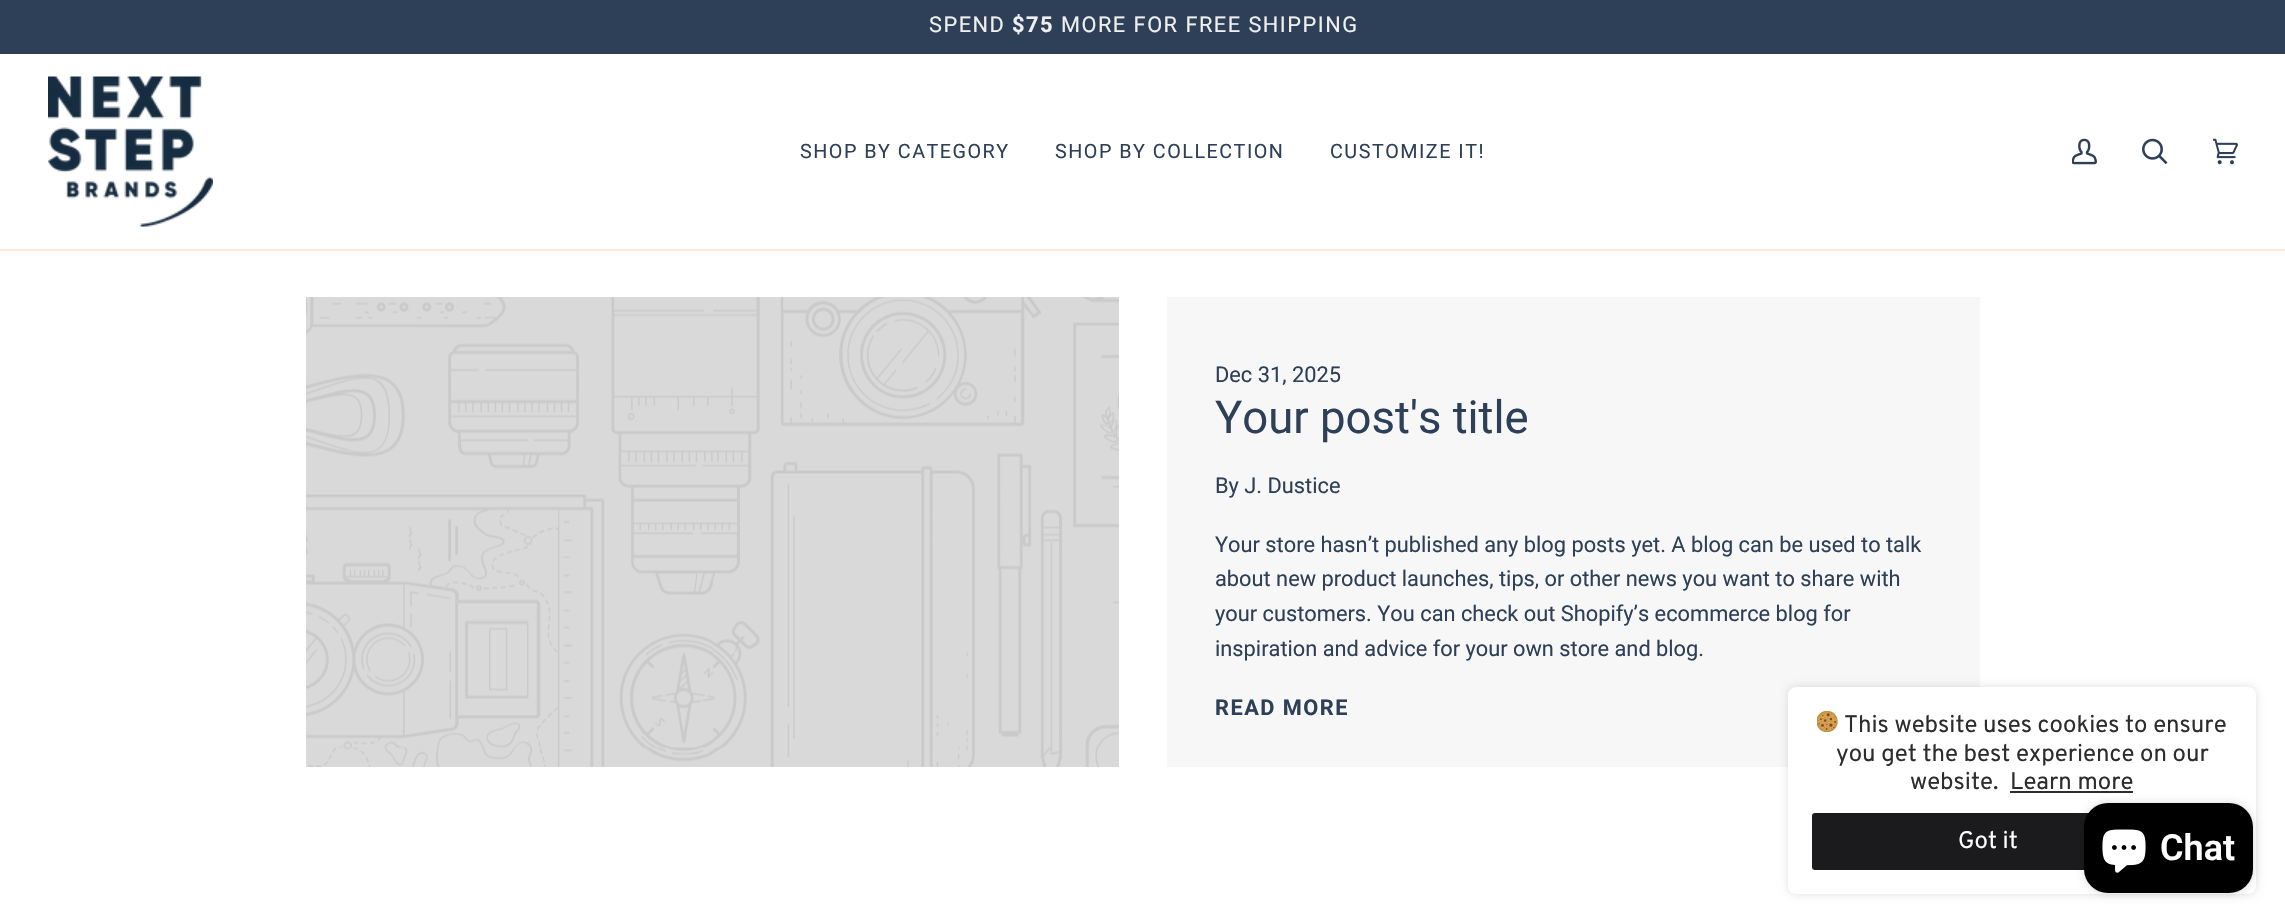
void draw(SkCanvas* canvas) {
    SkPaint paint;
    paint.setAntiAlias(true);
    auto face = [&](const char* family, int weight, float size, bool italic = false) {
        SkFontStyle style(weight, SkFontStyle::kNormal_Width,
            italic ? SkFontStyle::kItalic_Slant : SkFontStyle::kUpright_Slant);
        SkFont result(fontMgr->matchFamilyStyle(family, style), size);
        result.setSubpixel(true);
        return result;
    };
    auto write = [&](const char* s, float x, float y, const SkFont& font, SkColor color) {
        SkPaint ink(SkColor4f::FromColor(color));
        ink.setAntiAlias(true);
        canvas->drawString(s, x, y, font, ink);
    };
    auto writeSpaced = [&](const char* s, float x, float y, const SkFont& font, const SkPaint& ink, float letter, float word) {
        std::vector<SkGlyphID> glyphs(font.countText(s, strlen(s), SkTextEncoding::kUTF8));
        std::vector<float> xs(glyphs.size());
        font.textToGlyphs(s, strlen(s), SkTextEncoding::kUTF8, glyphs);
        font.getXPos(glyphs, xs, x);
        float extra = 0;
        for (size_t i = 0; i < glyphs.size(); i++) {
            xs[i] += extra;
            extra += letter + word * (glyphs[i] == font.unicharToGlyph(' '));
        }
        canvas->drawTextBlob(SkTextBlob::MakeFromPosHGlyphs(glyphs, xs, y, font), 0, 0, ink);
    };
    auto block = [&](float x, float y, float w, float h, SkColor color) {
        SkPaint ink(SkColor4f::FromColor(color));
        ink.setAntiAlias(true);
        canvas->drawRect(SkRect::MakeXYWH(x, y, w, h), ink);
    };
    auto card = [&](float x, float y, float w, float h, float radius, SkColor color) {
        SkPaint ink(SkColor4f::FromColor(color));
        ink.setAntiAlias(true);
        canvas->drawRoundRect(SkRect::MakeXYWH(x, y, w, h), radius, radius, ink);
    };
    auto paste = [&](const char* path, float x, float y, float w, float h) {
        auto image = SkImages::DeferredFromEncodedData(SkData::MakeFromFileName(path));
        canvas->drawImageRect(image, SkRect::MakeXYWH(x, y, w, h), SkSamplingOptions());
    };
    canvas->clear(SK_ColorWHITE);
    block(0, 0, 2285, 54, SkColorSetRGB(46, 64, 87));
    auto kFont1 = face("Roboto", 400, 21.75f);
    paint.setColor(SkColorSetRGB(239, 239, 239));
    writeSpaced("SPEND", 929, 32, kFont1, paint, 1.5f, 0);
    auto kFont2 = face("Roboto", 700, 21.75f);
    writeSpaced("$75", 1012, 32, kFont2, paint, 1.5f, 0);
    writeSpaced("MORE FOR FREE SHIPPING", 1061, 32, kFont1, paint, 1.5f, 0);
    block(0, 249, 2285, 2, SkColorSetRGB(255, 229, 218));
    paste("pic1.png", 48, 76, 165, 151);
    auto kFont3 = face("Roboto", 400, 19.75f);
    paint.setColor(SkColorSetRGB(46, 64, 87));
    writeSpaced("SHOP BY CATEGORY", 800, 158, kFont3, paint, 1.5f, 0);
    writeSpaced("SHOP BY COLLECTION", 1055, 158, kFont3, paint, 1.5f, 0);
    writeSpaced("CUSTOMIZE IT!", 1330, 158, kFont3, paint, 1.5f, 0);
    paste("pic2.png", 2072, 138, 25, 27);
    paste("pic3.png", 2142, 138, 26, 27);
    paste("pic4.png", 2213, 138, 25, 27);
    paste("pic5.png", 306, 297, 813, 470);
    block(1167, 297, 813, 470, SkColorSetRGB(247, 247, 247));
    auto kFont4 = face("Roboto", 400, 21.8f);
    write("Dec 31, 2025", 1215, 382, kFont4, SkColorSetRGB(46, 64, 87));
    auto kFont5 = face("Roboto", 400, 45.5f);
    write("Your post's title", 1215, 433, kFont5, SkColorSetRGB(46, 64, 87));
    write("By J. Dustice", 1215, 493, kFont4, SkColorSetRGB(46, 64, 87));
    write("Your store hasn’t published any blog posts yet. A blog can be used to talk", 1215, 552, kFont4, SkColorSetRGB(46, 64, 87));
    write("about new product launches, tips, or other news you want to share with", 1215, 586, kFont4, SkColorSetRGB(46, 64, 87));
    write("your customers. You can check out Shopify’s ecommerce blog for", 1215, 621, kFont4, SkColorSetRGB(46, 64, 87));
    write("inspiration and advice for your own store and blog.", 1215, 656, kFont4, SkColorSetRGB(46, 64, 87));
    writeSpaced("READ MORE", 1215, 715, kFont2, paint, 1.5f, 0);
    card(1788, 687, 468, 207, 8, SK_ColorWHITE);
    canvas->save();
    canvas->clipPath(SkPathBuilder(SkPathFillType::kEvenOdd).moveTo(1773, 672).lineTo(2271, 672).lineTo(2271, 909).lineTo(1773, 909).close().moveTo(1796, 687).lineTo(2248, 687).cubicTo(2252.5f, 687, 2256, 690.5f, 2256, 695).lineTo(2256, 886).cubicTo(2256, 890.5f, 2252.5f, 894, 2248, 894).lineTo(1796, 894).cubicTo(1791.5f, 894, 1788, 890.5f, 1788, 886).lineTo(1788, 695).cubicTo(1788, 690.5f, 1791.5f, 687, 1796, 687).close().detach(), true);
    paint.setColor(SkColorSetARGB(31, 0, 0, 0));
    paint.setMaskFilter(SkMaskFilter::MakeBlur(kNormal_SkBlurStyle, 4.5f));
    canvas->drawRoundRect(SkRect::MakeXYWH(1788, 687, 468, 207), 8, 8, paint);
    paint.setMaskFilter(nullptr);
    canvas->restore();
    paste("pic6.png", 1817, 711, 21, 21);
    auto kFont6 = face("Overpass", 400, 24);
    write("This website uses cookies to ensure", 1844, 732, kFont6, SkColorSetRGB(45, 45, 45));
    write("you get the best experience on our", 1836, 761, kFont6, SkColorSetRGB(45, 45, 45));
    write("website.", 1910, 789, kFont6, SkColorSetRGB(45, 45, 45));
    write("Learn more", 2010, 789, kFont6, SkColorSetRGB(45, 45, 45));
    block(2010, 791, 123, 2, SkColorSetRGB(45, 45, 45));
    card(1812, 813, 351, 57, 3, SkColorSetRGB(27, 26, 29));
    write("Got it", 1958, 848, kFont6, SK_ColorWHITE);
    paint.setColor(SkColorSetARGB(38, 0, 0, 0));
    paint.setMaskFilter(SkMaskFilter::MakeBlur(kNormal_SkBlurStyle, 4));
    canvas->drawRoundRect(SkRect::MakeXYWH(2084, 803, 169, 90), 24, 24, paint);
    paint.setMaskFilter(nullptr);
    card(2084, 803, 169, 90, 24, SK_ColorBLACK);
    paste("pic7.png", 2102, 829, 44, 44);
    auto kFont7 = face("Roboto", 600, 36);
    write("Chat", 2160, 860, kFont7, SK_ColorWHITE);
}
